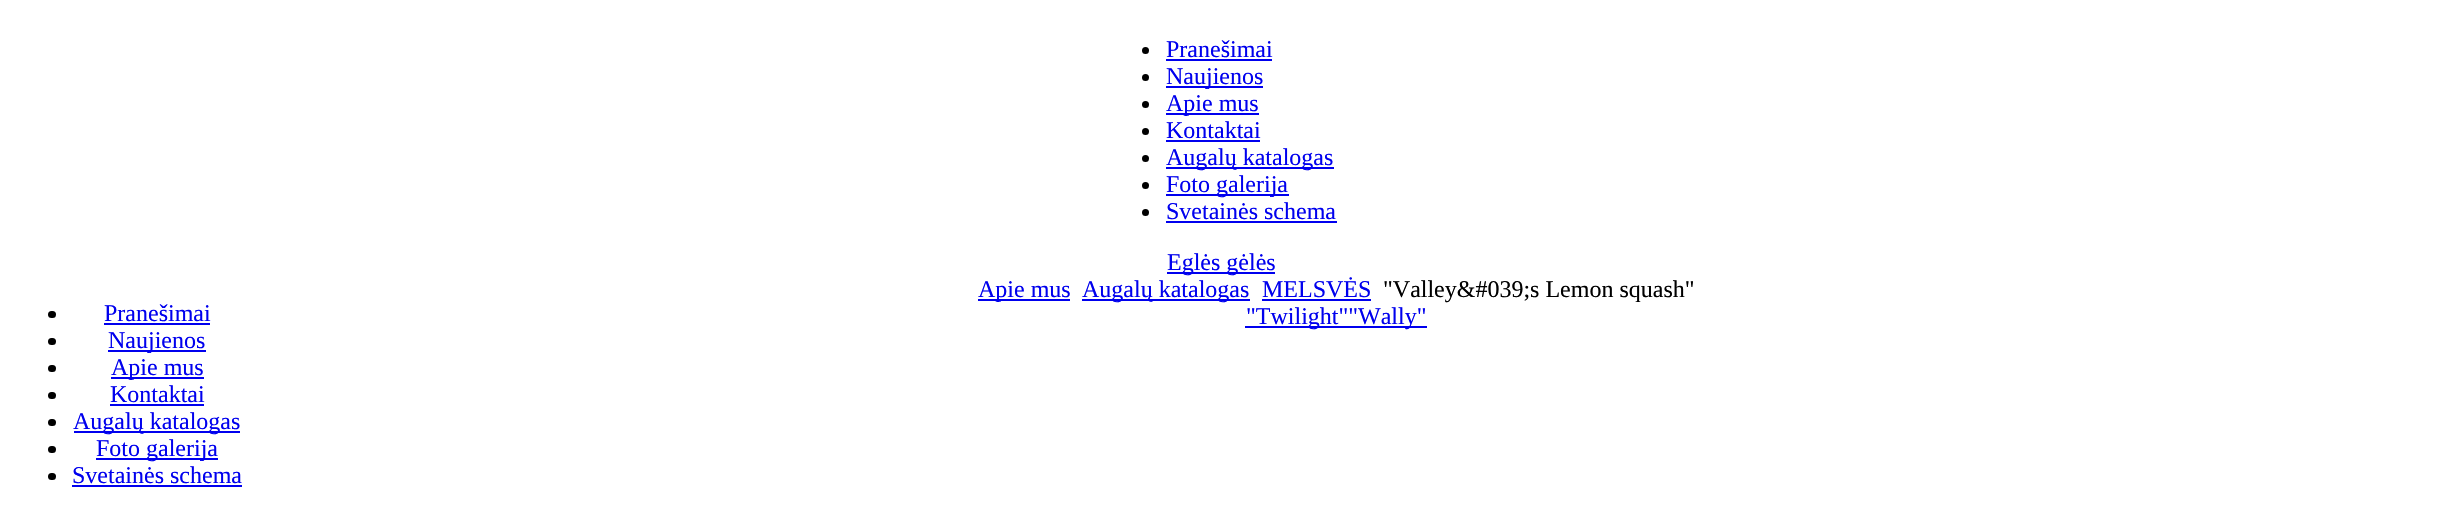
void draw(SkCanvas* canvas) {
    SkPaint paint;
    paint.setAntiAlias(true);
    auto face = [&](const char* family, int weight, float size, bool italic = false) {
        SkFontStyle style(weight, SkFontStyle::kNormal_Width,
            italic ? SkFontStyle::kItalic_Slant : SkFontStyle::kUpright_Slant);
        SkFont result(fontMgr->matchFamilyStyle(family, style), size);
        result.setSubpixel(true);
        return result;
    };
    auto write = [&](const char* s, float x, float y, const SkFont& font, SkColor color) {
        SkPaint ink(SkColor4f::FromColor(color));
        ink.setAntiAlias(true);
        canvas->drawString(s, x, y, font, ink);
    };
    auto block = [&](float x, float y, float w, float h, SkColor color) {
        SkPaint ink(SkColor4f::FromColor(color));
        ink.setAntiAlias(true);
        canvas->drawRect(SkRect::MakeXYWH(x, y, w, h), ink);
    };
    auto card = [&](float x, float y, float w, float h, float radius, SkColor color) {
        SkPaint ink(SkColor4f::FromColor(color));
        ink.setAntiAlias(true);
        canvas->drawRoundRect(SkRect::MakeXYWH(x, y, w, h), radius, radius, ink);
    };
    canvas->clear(SK_ColorWHITE);
    paint.setColor(SK_ColorBLACK);
    canvas->drawCircle(1145.5f, 50.5f, 3.5f, paint);
    auto kFont1 = face("Liberation Serif", 400, 24);
    write("Pranešimai", 1166, 57, kFont1, SkColorSetRGB(0, 0, 238));
    block(1166, 59, 106, 2, SkColorSetRGB(0, 0, 238));
    canvas->drawCircle(1145.5f, 77.5f, 3.5f, paint);
    block(1166, 86, 97, 2, SkColorSetRGB(0, 0, 238));
    write("Naujienos", 1166, 84, kFont1, SkColorSetRGB(0, 0, 238));
    canvas->drawCircle(1145.5f, 104.5f, 3.5f, paint);
    block(1166, 113, 93, 2, SkColorSetRGB(0, 0, 238));
    write("Apie mus", 1166, 111, kFont1, SkColorSetRGB(0, 0, 238));
    canvas->drawCircle(1145.5f, 131.5f, 3.5f, paint);
    write("Kontaktai", 1166, 138, kFont1, SkColorSetRGB(0, 0, 238));
    block(1166, 140, 94, 2, SkColorSetRGB(0, 0, 238));
    canvas->drawCircle(1145.5f, 158.5f, 3.5f, paint);
    block(1166, 167, 168, 2, SkColorSetRGB(0, 0, 238));
    write("Augalų katalogas", 1166, 165, kFont1, SkColorSetRGB(0, 0, 238));
    canvas->drawCircle(1145.5f, 185.5f, 3.5f, paint);
    block(1166, 194, 123, 2, SkColorSetRGB(0, 0, 238));
    write("Foto galerija", 1166, 192, kFont1, SkColorSetRGB(0, 0, 238));
    canvas->drawCircle(1145.5f, 212.5f, 3.5f, paint);
    write("Svetainės schema", 1166, 219, kFont1, SkColorSetRGB(0, 0, 238));
    block(1166, 221, 171, 2, SkColorSetRGB(0, 0, 238));
    block(1167, 272, 108, 2, SkColorSetRGB(0, 0, 238));
    write("Eglės gėlės", 1167, 270, kFont1, SkColorSetRGB(0, 0, 238));
    card(48, 311, 8, 7, 3.5f, SK_ColorBLACK);
    write("Pranešimai", 104, 321, kFont1, SkColorSetRGB(0, 0, 238));
    block(104, 323, 106, 2, SkColorSetRGB(0, 0, 238));
    card(48, 338, 8, 7, 3.5f, SK_ColorBLACK);
    block(108, 350, 98, 2, SkColorSetRGB(0, 0, 238));
    write("Naujienos", 108, 348, kFont1, SkColorSetRGB(0, 0, 238));
    card(48, 365, 8, 7, 3.5f, SK_ColorBLACK);
    block(111, 377, 93, 2, SkColorSetRGB(0, 0, 238));
    write("Apie mus", 111, 375, kFont1, SkColorSetRGB(0, 0, 238));
    card(48, 392, 8, 7, 3.5f, SK_ColorBLACK);
    write("Kontaktai", 110, 402, kFont1, SkColorSetRGB(0, 0, 238));
    block(110, 404, 94, 2, SkColorSetRGB(0, 0, 238));
    card(48, 419, 8, 7, 3.5f, SK_ColorBLACK);
    block(74, 431, 166, 2, SkColorSetRGB(0, 0, 238));
    write("Augalų katalogas", 73, 429, kFont1, SkColorSetRGB(0, 0, 238));
    card(48, 446, 8, 7, 3.5f, SK_ColorBLACK);
    block(96, 458, 122, 2, SkColorSetRGB(0, 0, 238));
    write("Foto galerija", 96, 456, kFont1, SkColorSetRGB(0, 0, 238));
    card(48, 473, 8, 7, 3.5f, SK_ColorBLACK);
    write("Svetainės schema", 72, 483, kFont1, SkColorSetRGB(0, 0, 238));
    block(72, 485, 170, 2, SkColorSetRGB(0, 0, 238));
    block(978, 299, 92, 2, SkColorSetRGB(0, 0, 238));
    write("Apie mus", 978, 297, kFont1, SkColorSetRGB(0, 0, 238));
    block(1082, 299, 168, 2, SkColorSetRGB(0, 0, 238));
    write("Augalų katalogas", 1082, 297, kFont1, SkColorSetRGB(0, 0, 238));
    write("MELSVĖS", 1262, 297, kFont1, SkColorSetRGB(0, 0, 238));
    block(1262, 299, 109, 2, SkColorSetRGB(0, 0, 238));
    write("\"Valley&#039;s Lemon squash\"", 1383, 297, kFont1, SK_ColorBLACK);
    block(1245, 326, 182, 2, SkColorSetRGB(0, 0, 238));
    write("\"Twilight\"\"Wally\"", 1246, 324, kFont1, SkColorSetRGB(0, 0, 238));
}
